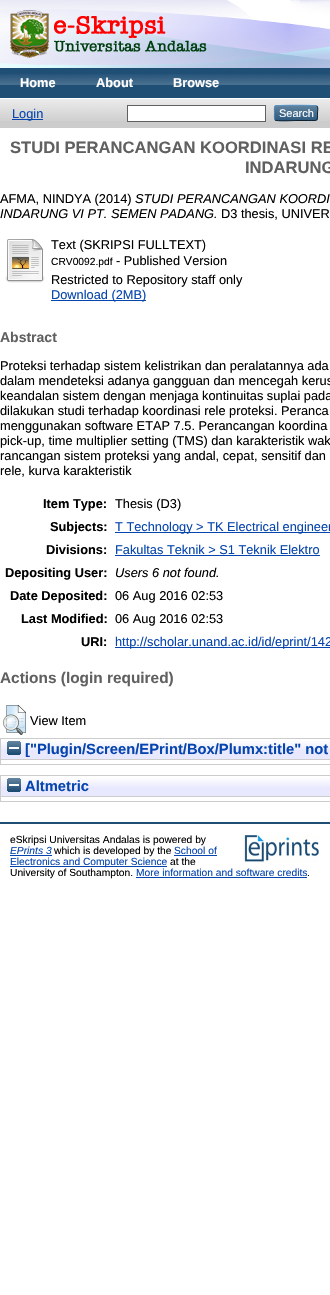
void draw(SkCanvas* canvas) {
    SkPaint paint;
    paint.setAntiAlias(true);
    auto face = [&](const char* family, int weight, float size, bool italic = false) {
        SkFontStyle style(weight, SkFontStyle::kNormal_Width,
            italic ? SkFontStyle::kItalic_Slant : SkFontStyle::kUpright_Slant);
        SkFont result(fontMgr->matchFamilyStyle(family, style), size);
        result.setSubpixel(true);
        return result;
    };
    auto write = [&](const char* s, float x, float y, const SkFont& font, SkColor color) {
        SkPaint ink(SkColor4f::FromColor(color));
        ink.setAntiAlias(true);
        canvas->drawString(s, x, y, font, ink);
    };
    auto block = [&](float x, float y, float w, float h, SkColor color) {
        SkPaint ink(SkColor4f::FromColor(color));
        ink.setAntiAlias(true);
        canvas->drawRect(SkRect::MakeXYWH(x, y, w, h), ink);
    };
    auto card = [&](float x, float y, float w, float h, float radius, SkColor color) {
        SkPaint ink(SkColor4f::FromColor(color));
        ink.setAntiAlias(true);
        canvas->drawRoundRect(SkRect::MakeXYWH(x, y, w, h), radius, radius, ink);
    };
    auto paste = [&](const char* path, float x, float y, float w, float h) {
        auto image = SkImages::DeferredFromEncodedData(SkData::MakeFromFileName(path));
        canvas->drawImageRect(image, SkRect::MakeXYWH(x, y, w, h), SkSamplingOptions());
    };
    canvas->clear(SK_ColorWHITE);
    paste("pic1.png", 0, 0, 330, 68);
    paste("pic2.png", 10, 10, 197, 48);
    block(0, 68, 330, 30, SkColorSetRGB(32, 79, 118));
    paste("pic3.png", 0, 74, 330, 11);
    auto kFont1 = face("Liberation Sans", 700, 12.8f);
    write("Home", 20, 87, kFont1, SK_ColorWHITE);
    write("About", 96, 87, kFont1, SK_ColorWHITE);
    write("Browse", 173, 87, kFont1, SK_ColorWHITE);
    block(0, 99, 330, 29, SkColorSetRGB(204, 204, 204));
    paste("pic4.png", 0, 99, 330, 22);
    block(12, 119, 31, 1, SkColorSetRGB(6, 69, 173));
    auto kFont2 = face("Liberation Sans", 400, 12.8f);
    write("Login", 12, 118, kFont2, SkColorSetRGB(6, 69, 173));
    paint.setColor(SK_ColorWHITE);
    canvas->drawRect(SkRect::MakeXYWH(127.5f, 105.5f, 138, 16), paint);
    paint.setStyle(SkPaint::kStroke_Style);
    paint.setStrokeWidth(1);
    paint.setColor(SkColorSetRGB(96, 96, 96));
    canvas->drawRect(SkRect::MakeXYWH(127.5f, 105.5f, 138, 16), paint);
    card(274, 105, 44, 16, 3, SkColorSetRGB(31, 79, 118));
    paste("pic5.png", 274, 105, 44, 16);
    paint.setColor(SkColorSetRGB(91, 151, 199));
    canvas->drawPath(SkPathBuilder().moveTo(275, 106).cubicTo(276.5f, 105, 315.5f, 105, 317, 106).detach(), paint);
    paint.setColor(SkColorSetRGB(13, 33, 49));
    canvas->drawPath(SkPathBuilder().moveTo(317, 106).cubicTo(318.5f, 108, 317.5f, 111, 317.5f, 113).cubicTo(317.5f, 121.5f, 318, 120.5f, 308.5f, 120.5f).lineTo(296, 120.5f).cubicTo(293, 120.5f, 277, 121.5f, 275, 120).detach(), paint);
    paint.setColor(SkColorSetRGB(82, 135, 179));
    canvas->drawPath(SkPathBuilder().moveTo(275, 120).cubicTo(274, 118.5f, 274.5f, 114.5f, 274.5f, 113).cubicTo(274.5f, 111.5f, 274, 107.5f, 275, 106).detach(), paint);
    auto kFont3 = face("Liberation Sans", 400, 11);
    write("Search", 279, 117, kFont3, SK_ColorWHITE);
    auto kFont4 = face("Liberation Sans", 700, 16.6f);
    write("STUDI PERANCANGAN KOORDINASI RE", 10, 153, kFont4, SkColorSetRGB(96, 96, 96));
    write("INDARUNG", 245, 173, kFont4, SkColorSetRGB(96, 96, 96));
    write("AFMA, NINDYA (2014)", 0, 203, kFont2, SK_ColorBLACK);
    auto kFont5 = face("Liberation Sans", 400, 12.8f, true);
    write("STUDI PERANCANGAN KOORDI", 135, 203, kFont5, SK_ColorBLACK);
    write("INDARUNG VI PT. SEMEN PADANG.", 0, 218, kFont5, SK_ColorBLACK);
    write("D3 thesis, UNIVER", 221, 218, kFont2, SK_ColorBLACK);
    paste("pic6.png", 5, 239, 40, 44);
    write("Text (SKRIPSI FULLTEXT)", 51, 249, kFont2, SK_ColorBLACK);
    auto kFont6 = face("Liberation Sans", 400, 10.25f);
    write("CRV0092.pdf", 51, 265, kFont6, SK_ColorBLACK);
    write("- Published Version", 116, 265, kFont2, SK_ColorBLACK);
    write("Restricted to Repository staff only", 51, 284, kFont2, SK_ColorBLACK);
    block(51, 300, 95, 1, SkColorSetRGB(6, 69, 173));
    write("Download (2MB)", 51, 299, kFont2, SkColorSetRGB(6, 69, 173));
    auto kFont7 = face("Liberation Sans", 700, 14);
    write("Abstract", 0, 342, kFont7, SkColorSetRGB(96, 96, 96));
    write("Proteksi terhadap sistem kelistrikan dan peralatannya ada", 0, 370, kFont2, SK_ColorBLACK);
    write("dalam mendeteksi adanya gangguan dan mencegah kerus", 0, 385, kFont2, SK_ColorBLACK);
    write("keandalan sistem dengan menjaga kontinuitas suplai pada", 0, 400, kFont2, SK_ColorBLACK);
    write("dilakukan studi terhadap koordinasi rele proteksi. Peranca", 0, 415, kFont2, SK_ColorBLACK);
    write("menggunakan software ETAP 7.5. Perancangan koordina", 0, 430, kFont2, SK_ColorBLACK);
    write("pick-up, time multiplier setting (TMS) dan karakteristik wak", 0, 445, kFont2, SK_ColorBLACK);
    write("rancangan sistem proteksi yang andal, cepat, sensitif dan", 0, 460, kFont2, SK_ColorBLACK);
    write("rele, kurva karakteristik", 0, 475, kFont2, SK_ColorBLACK);
    write("Item Type:", 43, 508, kFont1, SK_ColorBLACK);
    write("Thesis (D3)", 115, 508, kFont2, SK_ColorBLACK);
    write("Subjects:", 50, 531, kFont1, SK_ColorBLACK);
    block(115, 532, 215, 1, SkColorSetRGB(6, 69, 173));
    write("T Technology > TK Electrical engineer", 115, 531, kFont2, SkColorSetRGB(6, 69, 173));
    write("Divisions:", 46, 554, kFont1, SK_ColorBLACK);
    write("Fakultas Teknik > S1 Teknik Elektro", 115, 554, kFont2, SkColorSetRGB(6, 69, 173));
    block(115, 555, 205, 1, SkColorSetRGB(6, 69, 173));
    write("Depositing User:", 5, 577, kFont1, SK_ColorBLACK);
    write("Users 6 not found.", 115, 577, kFont5, SK_ColorBLACK);
    write("Date Deposited:", 10, 600, kFont1, SK_ColorBLACK);
    write("06 Aug 2016 02:53", 115, 600, kFont2, SK_ColorBLACK);
    write("Last Modified:", 21, 623, kFont1, SK_ColorBLACK);
    write("06 Aug 2016 02:53", 115, 623, kFont2, SK_ColorBLACK);
    write("URI:", 81, 646, kFont1, SK_ColorBLACK);
    block(115, 647, 215, 1, SkColorSetRGB(6, 69, 173));
    write("http://scholar.unand.ac.id/id/eprint/142", 115, 646, kFont2, SkColorSetRGB(6, 69, 173));
    auto kFont8 = face("Liberation Sans", 700, 15.4f);
    write("Actions (login required)", 0, 683, kFont8, SkColorSetRGB(96, 96, 96));
    paste("pic7.png", 3, 705, 23, 30);
    write("View Item", 30, 725, kFont2, SK_ColorBLACK);
    block(1, 740, 329, 19, SkColorSetRGB(232, 232, 255));
    paste("pic8.png", 1, 739, 329, 11);
    paint.setColor(SkColorSetRGB(204, 204, 204));
    canvas->drawRect(SkRect::MakeXYWH(0.5f, 738.5f, 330, 21), paint);
    paste("pic9.png", 7, 741, 14, 14);
    auto kFont9 = face("Liberation Sans", 700, 14.75f);
    write("[\"Plugin/Screen/EPrint/Box/Plumx:title\" not", 25, 754, kFont9, SkColorSetRGB(6, 69, 173));
    paste("pic10.png", 1, 760, 329, 4);
    block(0, 764, 330, 1, SkColorSetRGB(204, 204, 204));
    block(0, 760, 1, 5, SkColorSetRGB(204, 204, 204));
    block(1, 777, 329, 19, SkColorSetRGB(232, 232, 255));
    paste("pic8.png", 1, 776, 329, 11);
    canvas->drawRect(SkRect::MakeXYWH(0.5f, 775.5f, 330, 21), paint);
    paste("pic9.png", 7, 778, 14, 14);
    write("Altmetric", 25, 791, kFont9, SkColorSetRGB(6, 69, 173));
    paste("pic10.png", 1, 797, 329, 4);
    block(0, 801, 330, 1, SkColorSetRGB(204, 204, 204));
    block(0, 797, 1, 5, SkColorSetRGB(204, 204, 204));
    block(0, 822, 330, 2, SkColorSetRGB(32, 79, 118));
    write("eSkripsi Universitas Andalas is powered by", 10, 843, kFont6, SK_ColorBLACK);
    auto kFont10 = face("Liberation Sans", 400, 10.25f, true);
    write("EPrints 3", 10, 854, kFont10, SkColorSetRGB(6, 69, 173));
    block(10, 855, 42, 1, SkColorSetRGB(6, 69, 173));
    write("which is developed by the", 54, 854, kFont6, SK_ColorBLACK);
    write("School of", 174, 854, kFont6, SkColorSetRGB(6, 69, 173));
    block(174, 855, 43, 1, SkColorSetRGB(6, 69, 173));
    block(10, 866, 157, 1, SkColorSetRGB(6, 69, 173));
    write("Electronics and Computer Science", 10, 865, kFont6, SkColorSetRGB(6, 69, 173));
    write("at the", 170, 865, kFont6, SK_ColorBLACK);
    write("University of Southampton.", 10, 876, kFont6, SK_ColorBLACK);
    write("More information and software credits", 136, 876, kFont6, SkColorSetRGB(6, 69, 173));
    block(136, 877, 171, 1, SkColorSetRGB(6, 69, 173));
    write(".", 307, 876, kFont6, SK_ColorBLACK);
    paste("pic11.png", 243, 835, 76, 28);
}
